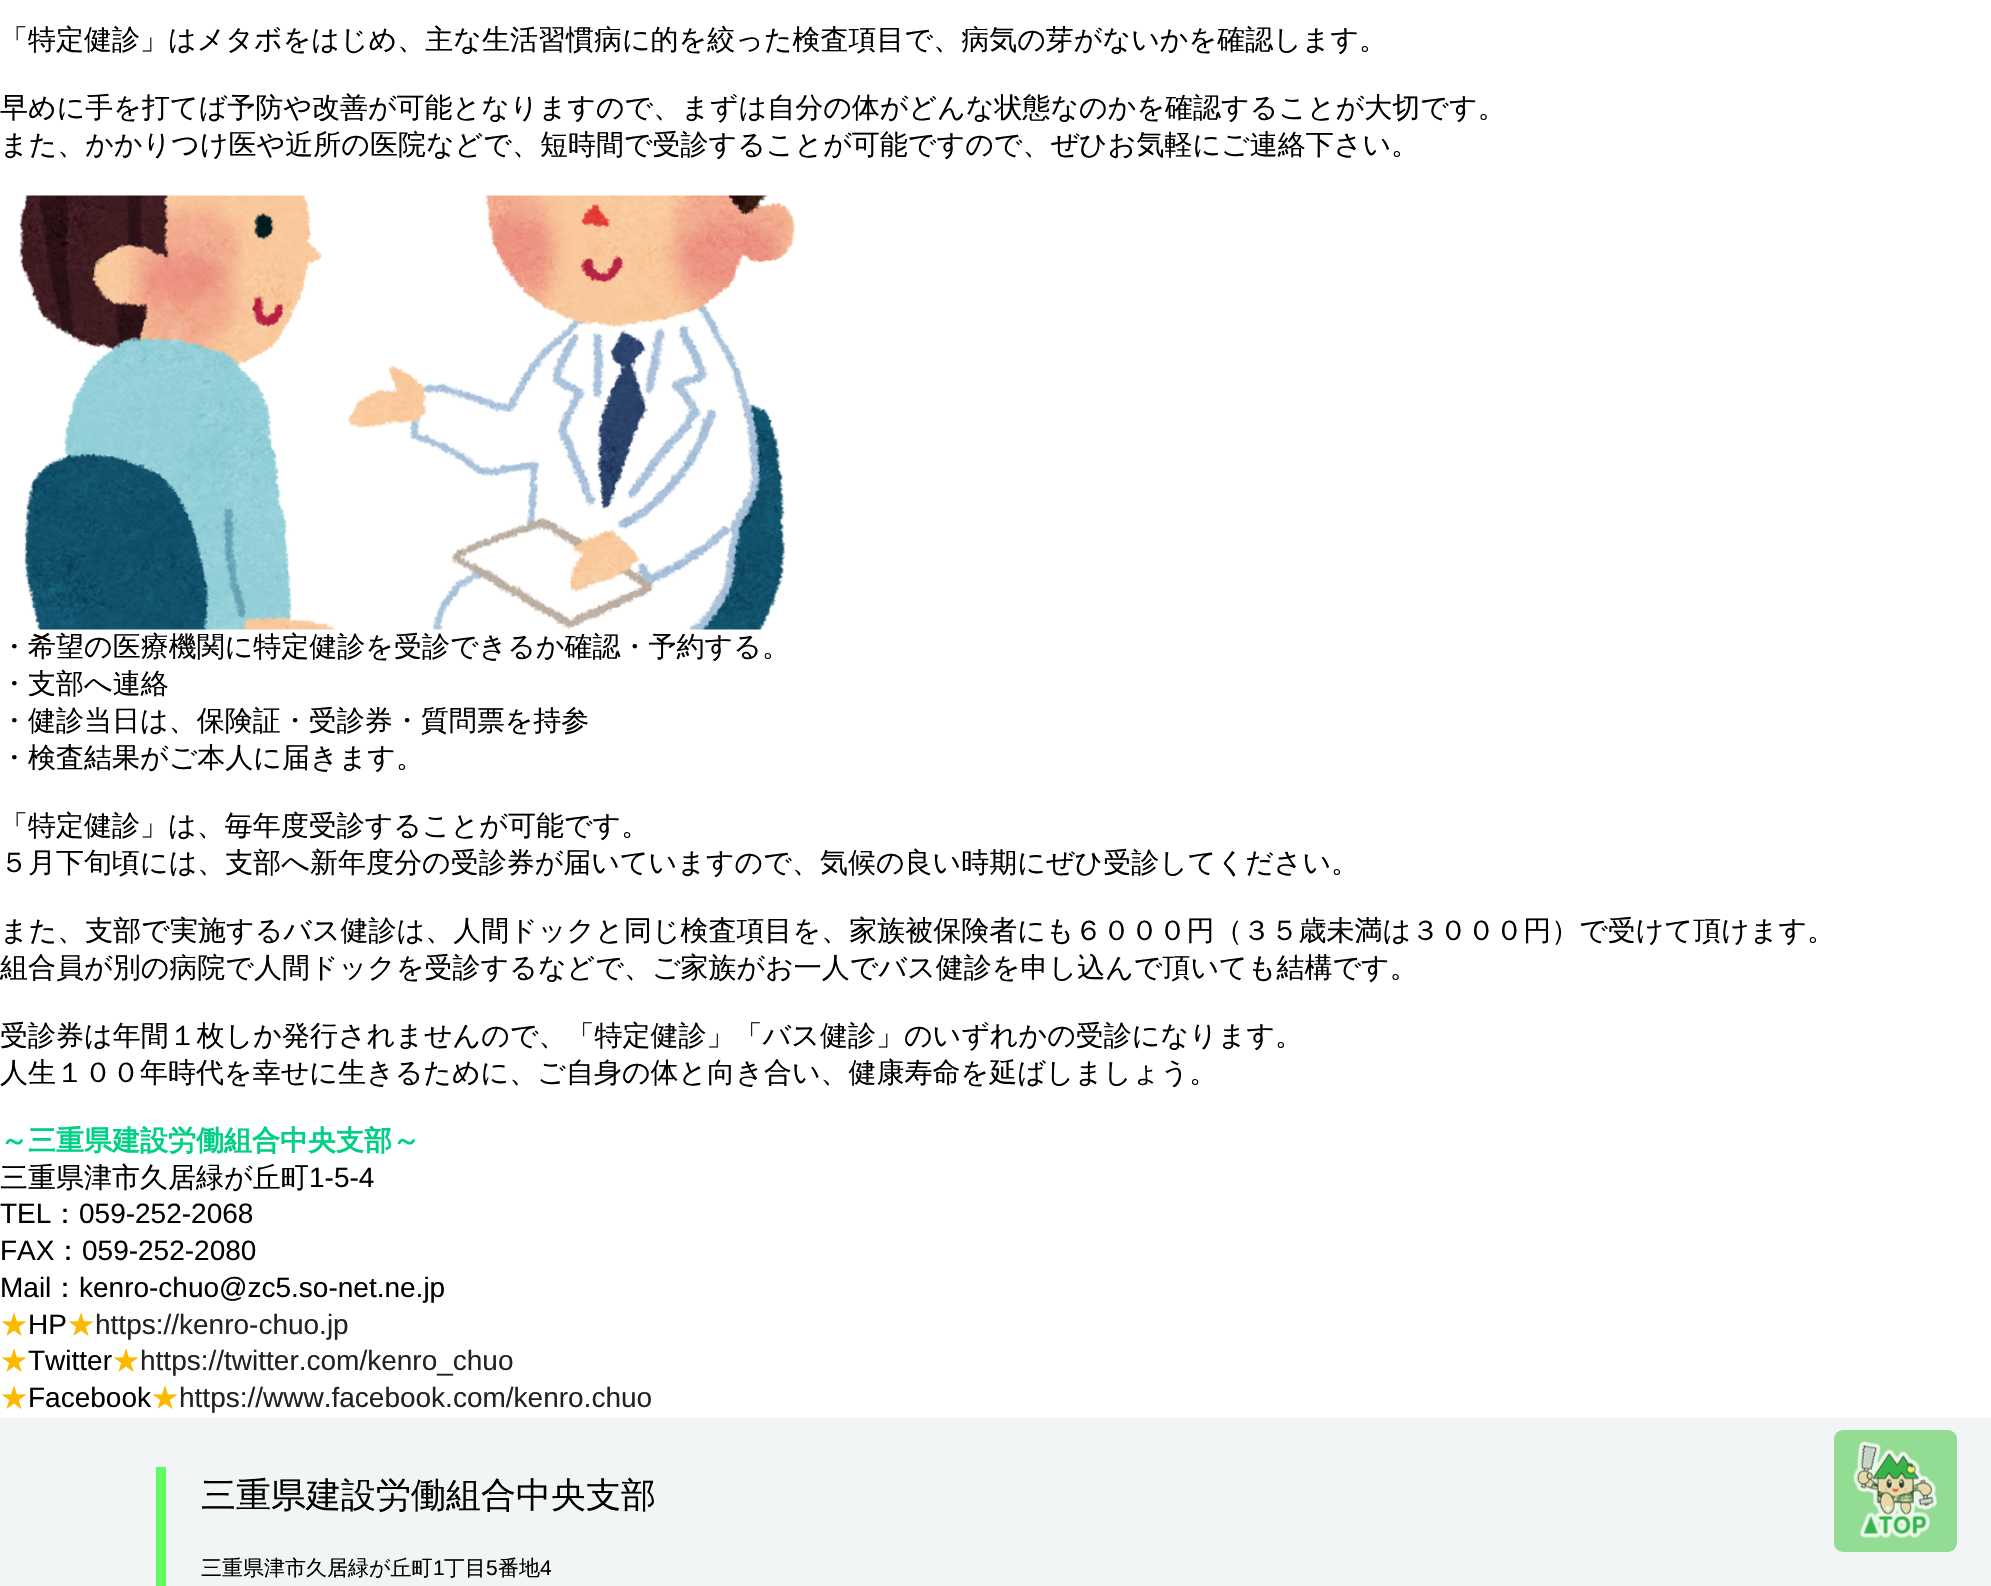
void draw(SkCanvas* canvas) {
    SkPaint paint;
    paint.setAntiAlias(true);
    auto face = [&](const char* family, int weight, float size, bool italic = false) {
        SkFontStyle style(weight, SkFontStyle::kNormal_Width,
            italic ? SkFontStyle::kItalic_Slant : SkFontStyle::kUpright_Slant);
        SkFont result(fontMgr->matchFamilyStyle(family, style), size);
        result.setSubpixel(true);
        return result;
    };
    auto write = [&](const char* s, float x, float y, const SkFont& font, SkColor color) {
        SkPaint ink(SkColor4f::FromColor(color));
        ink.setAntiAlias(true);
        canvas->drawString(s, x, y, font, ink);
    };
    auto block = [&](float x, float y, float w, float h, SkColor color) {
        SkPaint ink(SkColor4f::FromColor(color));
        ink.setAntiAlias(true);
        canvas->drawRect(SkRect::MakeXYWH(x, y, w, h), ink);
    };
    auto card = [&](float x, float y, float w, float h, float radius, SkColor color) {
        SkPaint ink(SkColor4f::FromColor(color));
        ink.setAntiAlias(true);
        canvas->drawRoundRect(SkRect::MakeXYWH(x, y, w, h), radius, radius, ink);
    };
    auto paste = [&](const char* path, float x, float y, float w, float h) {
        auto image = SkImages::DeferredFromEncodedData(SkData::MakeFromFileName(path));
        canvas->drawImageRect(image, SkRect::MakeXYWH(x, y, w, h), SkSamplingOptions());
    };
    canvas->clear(SK_ColorWHITE);
    auto kFont1 = face("WenQuanYi Zen Hei", 500, 28);
    write("「特定健診」はメタボをはじめ、主な生活習慣病に的を絞った検査項目で、病気の芽がないかを確認します。", 0, 49, kFont1, SK_ColorBLACK);
    write("早めに手を打てば予防や改善が可能となりますので、まずは自分の体がどんな状態なのかを確認することが大切です。", 0, 117, kFont1, SK_ColorBLACK);
    write("また、かかりつけ医や近所の医院などで、短時間で受診することが可能ですので、ぜひお気軽にご連絡下さい。", 0, 154, kFont1, SK_ColorBLACK);
    paste("pic1.png", 18, 195, 779, 435);
    write("・希望の医療機関に特定健診を受診できるか確認・予約する。", 0, 656, kFont1, SK_ColorBLACK);
    write("・支部へ連絡", 0, 693, kFont1, SK_ColorBLACK);
    write("・健診当日は、保険証・受診券・質問票を持参", 0, 730, kFont1, SK_ColorBLACK);
    write("・検査結果がご本人に届きます。", 0, 767, kFont1, SK_ColorBLACK);
    write("「特定健診」は、毎年度受診することが可能です。", 0, 835, kFont1, SK_ColorBLACK);
    write("５月下旬頃には、支部へ新年度分の受診券が届いていますので、気候の良い時期にぜひ受診してください。", 0, 872, kFont1, SK_ColorBLACK);
    write("また、支部で実施するバス健診は、人間ドックと同じ検査項目を、家族被保険者にも６０００円（３５歳未満は３０００円）で受けて頂けます。", 0, 940, kFont1, SK_ColorBLACK);
    write("組合員が別の病院で人間ドックを受診するなどで、ご家族がお一人でバス健診を申し込んで頂いても結構です。", 0, 977, kFont1, SK_ColorBLACK);
    write("受診券は年間１枚しか発行されませんので、「特定健診」「バス健診」のいずれかの受診になります。", 0, 1045, kFont1, SK_ColorBLACK);
    write("人生１００年時代を幸せに生きるために、ご自身の体と向き合い、健康寿命を延ばしましょう。", 0, 1082, kFont1, SK_ColorBLACK);
    auto kFont2 = face("WenQuanYi Zen Hei", 700, 28);
    write("～三重県建設労働組合中央支部～", 0, 1150, kFont2, SkColorSetRGB(0, 208, 132));
    write("三重県津市久居緑が丘町", 0, 1187, kFont1, SK_ColorBLACK);
    auto kFont3 = face("Liberation Sans", 400, 28);
    write("1-5-4", 309, 1187, kFont3, SK_ColorBLACK);
    write("TEL", 0, 1223, kFont3, SK_ColorBLACK);
    write("：", 51, 1223, kFont1, SK_ColorBLACK);
    write("059-252-2068", 79, 1223, kFont3, SK_ColorBLACK);
    write("FAX", 0, 1260, kFont3, SK_ColorBLACK);
    write("：", 54, 1260, kFont1, SK_ColorBLACK);
    write("059-252-2080", 82, 1260, kFont3, SK_ColorBLACK);
    write("Mail", 0, 1297, kFont3, SK_ColorBLACK);
    write("：", 51, 1297, kFont1, SK_ColorBLACK);
    write("kenro-chuo@zc5.so-net.ne.jp", 79, 1297, kFont3, SK_ColorBLACK);
    write("★", 0, 1334, kFont1, SkColorSetRGB(252, 185, 0));
    write("HP", 28, 1334, kFont3, SK_ColorBLACK);
    write("★", 67, 1334, kFont1, SkColorSetRGB(252, 185, 0));
    write("https://kenro-chuo.jp", 95, 1334, kFont3, SkColorSetRGB(34, 34, 34));
    write("★", 0, 1370, kFont1, SkColorSetRGB(252, 185, 0));
    write("Twitter", 28, 1370, kFont3, SK_ColorBLACK);
    write("★", 112, 1370, kFont1, SkColorSetRGB(252, 185, 0));
    write("https://twitter.com/kenro_chuo", 140, 1370, kFont3, SkColorSetRGB(34, 34, 34));
    write("★", 0, 1407, kFont1, SkColorSetRGB(252, 185, 0));
    write("Facebook", 28, 1407, kFont3, SK_ColorBLACK);
    write("★", 151, 1407, kFont1, SkColorSetRGB(252, 185, 0));
    write("https://www.facebook.com/kenro.chuo", 179, 1407, kFont3, SkColorSetRGB(34, 34, 34));
    block(0, 1418, 1991, 168, SkColorSetRGB(241, 245, 245));
    block(156, 1467, 10, 119, SkColorSetRGB(98, 249, 97));
    auto kFont4 = face("WenQuanYi Zen Hei", 500, 35);
    write("三重県建設労働組合中央支部", 201, 1507, kFont4, SK_ColorBLACK);
    auto kFont5 = face("WenQuanYi Zen Hei", 500, 21);
    write("三重県津市久居緑が丘町", 201, 1575, kFont5, SK_ColorBLACK);
    auto kFont6 = face("Liberation Sans", 400, 21);
    write("1", 433, 1575, kFont6, SK_ColorBLACK);
    write("丁目", 444, 1575, kFont5, SK_ColorBLACK);
    write("5", 486, 1575, kFont6, SK_ColorBLACK);
    write("番地", 498, 1575, kFont5, SK_ColorBLACK);
    write("4", 540, 1575, kFont6, SK_ColorBLACK);
    card(1834, 1430, 123, 122, 9, SkColorSetRGB(146, 220, 147));
    paste("pic2.png", 1853, 1441, 84, 97);
}
